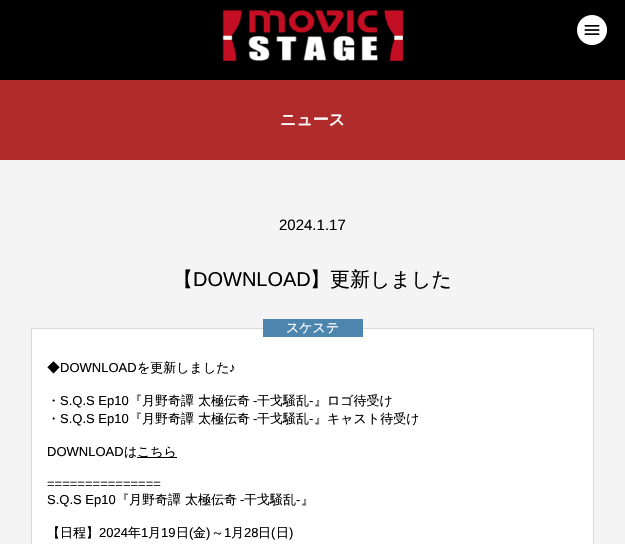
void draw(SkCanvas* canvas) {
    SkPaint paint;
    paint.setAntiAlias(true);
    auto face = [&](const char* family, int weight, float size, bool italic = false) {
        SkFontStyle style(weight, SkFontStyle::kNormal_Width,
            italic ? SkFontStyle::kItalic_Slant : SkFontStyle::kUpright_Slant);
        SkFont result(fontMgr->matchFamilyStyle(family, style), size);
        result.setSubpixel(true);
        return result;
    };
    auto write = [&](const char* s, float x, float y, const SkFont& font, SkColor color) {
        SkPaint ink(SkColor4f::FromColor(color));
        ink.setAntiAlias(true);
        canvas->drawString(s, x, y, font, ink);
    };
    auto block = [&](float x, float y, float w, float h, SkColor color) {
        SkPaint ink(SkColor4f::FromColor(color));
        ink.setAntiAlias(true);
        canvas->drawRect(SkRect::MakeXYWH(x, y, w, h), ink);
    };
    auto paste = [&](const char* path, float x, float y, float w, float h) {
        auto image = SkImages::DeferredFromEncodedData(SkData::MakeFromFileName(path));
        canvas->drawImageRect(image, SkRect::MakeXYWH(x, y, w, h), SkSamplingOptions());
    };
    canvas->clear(SkColorSetRGB(244, 244, 244));
    block(0, 0, 625, 80, SK_ColorBLACK);
    paste("pic1.png", 222, 10, 181, 51);
    paste("pic2.png", 577, 15, 30, 30);
    block(0, 80, 625, 80, SkColorSetRGB(176, 43, 43));
    auto kFont1 = face("WenQuanYi Zen Hei", 700, 16);
    write("ニュース", 280, 125, kFont1, SK_ColorWHITE);
    auto kFont2 = face("Liberation Sans", 400, 15);
    write("2024.1.17", 279, 230, kFont2, SK_ColorBLACK);
    auto kFont3 = face("WenQuanYi Zen Hei", 500, 20);
    write("【", 173, 286, kFont3, SK_ColorBLACK);
    auto kFont4 = face("Liberation Sans", 400, 20);
    write("DOWNLOAD", 193, 286, kFont4, SK_ColorBLACK);
    write("】更新しました", 310, 286, kFont3, SK_ColorBLACK);
    paint.setColor(SK_ColorWHITE);
    canvas->drawRect(SkRect::MakeXYWH(31.5f, 328.5f, 562, 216), paint);
    paint.setStyle(SkPaint::kStroke_Style);
    paint.setStrokeWidth(1);
    paint.setColor(SkColorSetRGB(217, 217, 217));
    canvas->drawRect(SkRect::MakeXYWH(31.5f, 328.5f, 562, 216), paint);
    block(263, 319, 100, 18, SkColorSetRGB(76, 133, 174));
    auto kFont5 = face("WenQuanYi Zen Hei", 500, 13);
    write("スケステ", 286, 332, kFont5, SK_ColorWHITE);
    write("◆", 47, 372, kFont5, SK_ColorBLACK);
    auto kFont6 = face("Liberation Sans", 400, 13);
    write("DOWNLOAD", 60, 372, kFont6, SK_ColorBLACK);
    write("を更新しました", 137, 372, kFont5, SK_ColorBLACK);
    write("♪", 229, 372, kFont6, SK_ColorBLACK);
    write("・", 47, 405, kFont5, SK_ColorBLACK);
    write("S.Q.S Ep10", 60, 405, kFont6, SK_ColorBLACK);
    write("『月野奇譚 太極伝奇", 129, 405, kFont5, SK_ColorBLACK);
    write("-", 253, 405, kFont6, SK_ColorBLACK);
    write("干戈騒乱", 257, 405, kFont5, SK_ColorBLACK);
    write("-", 309, 405, kFont6, SK_ColorBLACK);
    write("』ロゴ待受け", 314, 405, kFont5, SK_ColorBLACK);
    write("・", 47, 423, kFont5, SK_ColorBLACK);
    write("S.Q.S Ep10", 60, 423, kFont6, SK_ColorBLACK);
    write("『月野奇譚 太極伝奇", 129, 423, kFont5, SK_ColorBLACK);
    write("-", 253, 423, kFont6, SK_ColorBLACK);
    write("干戈騒乱", 257, 423, kFont5, SK_ColorBLACK);
    write("-", 309, 423, kFont6, SK_ColorBLACK);
    write("』キャスト待受け", 314, 423, kFont5, SK_ColorBLACK);
    write("DOWNLOAD", 47, 456, kFont6, SK_ColorBLACK);
    write("は", 124, 456, kFont5, SK_ColorBLACK);
    block(137, 457, 40, 1, SK_ColorBLACK);
    write("こちら", 137, 456, kFont5, SK_ColorBLACK);
    write("===============", 47, 488, kFont6, SK_ColorBLACK);
    write("S.Q.S Ep10", 47, 504, kFont6, SK_ColorBLACK);
    write("『月野奇譚 太極伝奇", 116, 504, kFont5, SK_ColorBLACK);
    write("-", 240, 504, kFont6, SK_ColorBLACK);
    write("干戈騒乱", 244, 504, kFont5, SK_ColorBLACK);
    write("-", 296, 504, kFont6, SK_ColorBLACK);
    write("』", 301, 504, kFont5, SK_ColorBLACK);
    write("【日程】", 47, 537, kFont5, SK_ColorBLACK);
    write("2024", 99, 537, kFont6, SK_ColorBLACK);
    write("年", 128, 537, kFont5, SK_ColorBLACK);
    write("1", 141, 537, kFont6, SK_ColorBLACK);
    write("月", 148, 537, kFont5, SK_ColorBLACK);
    write("19", 161, 537, kFont6, SK_ColorBLACK);
    write("日", 176, 537, kFont5, SK_ColorBLACK);
    write("(", 189, 537, kFont6, SK_ColorBLACK);
    write("金", 193, 537, kFont5, SK_ColorBLACK);
    write(")", 206, 537, kFont6, SK_ColorBLACK);
    write("～", 211, 537, kFont5, SK_ColorBLACK);
    write("1", 224, 537, kFont6, SK_ColorBLACK);
    write("月", 231, 537, kFont5, SK_ColorBLACK);
    write("28", 244, 537, kFont6, SK_ColorBLACK);
    write("日", 258, 537, kFont5, SK_ColorBLACK);
    write("(", 271, 537, kFont6, SK_ColorBLACK);
    write("日", 276, 537, kFont5, SK_ColorBLACK);
    write(")", 289, 537, kFont6, SK_ColorBLACK);
}
